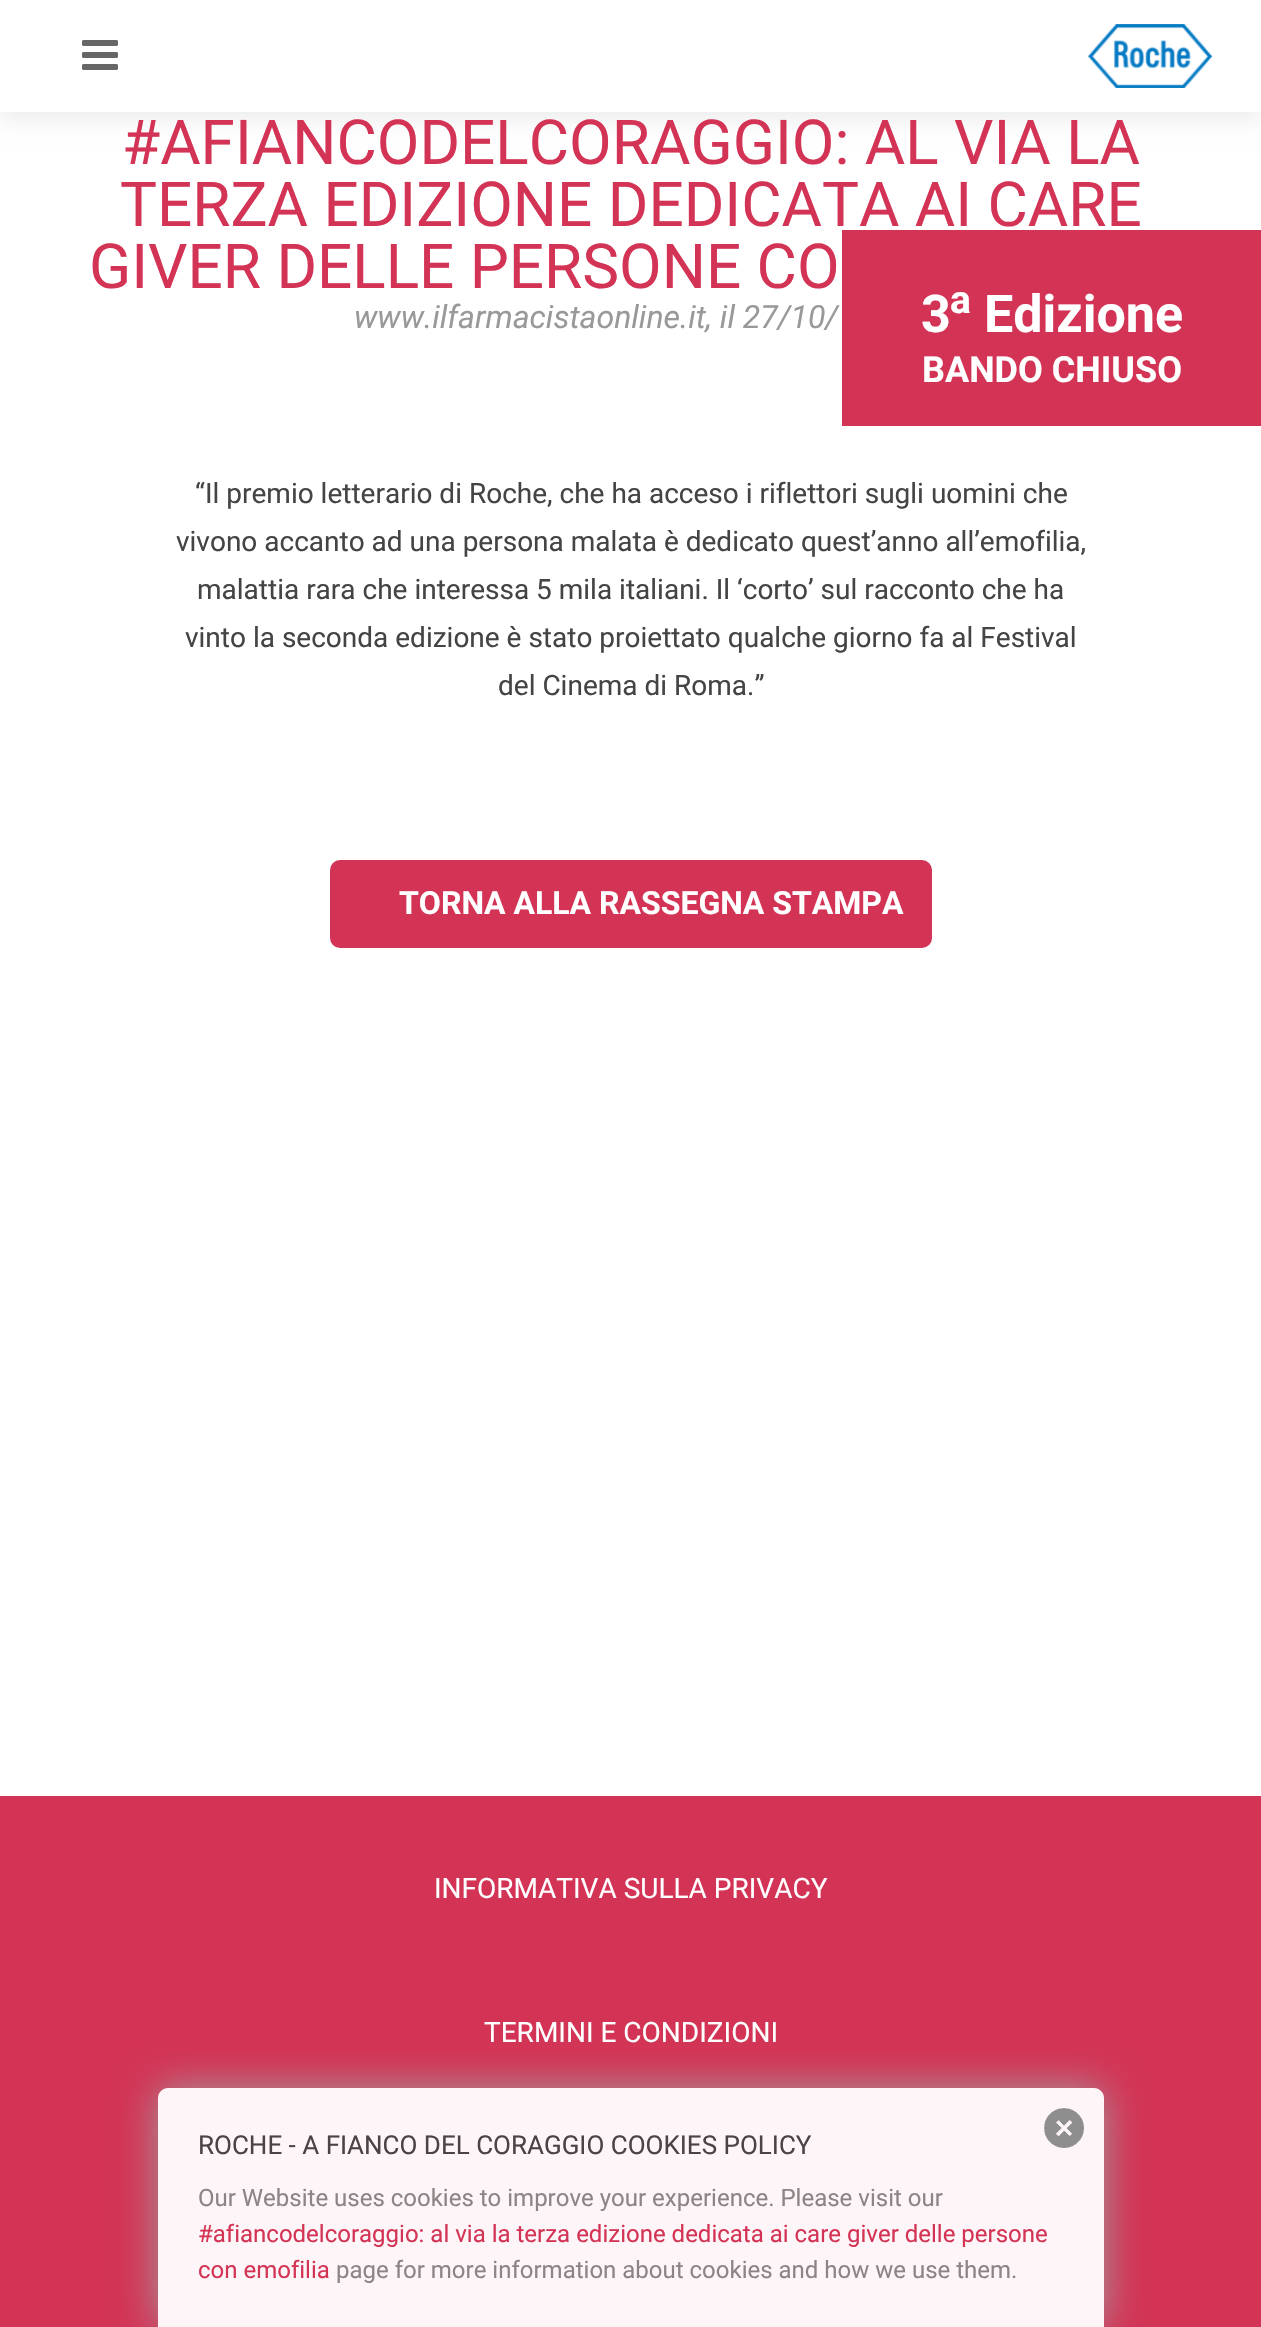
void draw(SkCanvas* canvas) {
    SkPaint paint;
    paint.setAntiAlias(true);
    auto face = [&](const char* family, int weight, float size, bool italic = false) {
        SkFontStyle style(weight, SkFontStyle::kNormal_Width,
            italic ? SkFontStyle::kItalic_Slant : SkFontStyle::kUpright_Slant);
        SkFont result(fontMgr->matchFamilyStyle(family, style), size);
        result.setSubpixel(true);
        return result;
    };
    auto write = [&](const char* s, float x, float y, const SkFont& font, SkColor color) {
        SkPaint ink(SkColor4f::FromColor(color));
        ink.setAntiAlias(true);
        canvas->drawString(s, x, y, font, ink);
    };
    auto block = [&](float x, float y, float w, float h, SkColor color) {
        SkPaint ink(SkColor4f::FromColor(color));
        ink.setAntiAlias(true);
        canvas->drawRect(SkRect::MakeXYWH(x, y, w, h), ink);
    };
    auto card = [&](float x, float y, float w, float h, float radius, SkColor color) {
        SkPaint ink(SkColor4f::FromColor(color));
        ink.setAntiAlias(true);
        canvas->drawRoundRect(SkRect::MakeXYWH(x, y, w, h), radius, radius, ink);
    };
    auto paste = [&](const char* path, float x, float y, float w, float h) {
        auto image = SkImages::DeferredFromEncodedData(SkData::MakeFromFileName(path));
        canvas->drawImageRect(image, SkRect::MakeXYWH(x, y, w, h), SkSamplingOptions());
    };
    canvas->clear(SK_ColorWHITE);
    paint.setColor(SkColorSetARGB(18, 0, 0, 0));
    paint.setMaskFilter(SkMaskFilter::MakeBlur(kNormal_SkBlurStyle, 10));
    canvas->drawRect(SkRect::MakeXYWH(0, 8, 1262, 112), paint);
    paint.setMaskFilter(nullptr);
    block(0, 0, 1261, 112, SK_ColorWHITE);
    paste("pic1.png", 82, 40, 36, 30);
    paste("pic2.png", 1088, 24, 124, 64);
    auto kFont1 = face("Roboto", 400, 62);
    write("#AFIANCODELCORAGGIO: AL VIA LA", 122, 164, kFont1, SkColorSetRGB(211, 51, 85));
    write("TERZA EDIZIONE DEDICATA AI CARE", 120, 226, kFont1, SkColorSetRGB(211, 51, 85));
    write("GIVER DELLE PERSONE CO", 89, 288, kFont1, SkColorSetRGB(211, 51, 85));
    auto kFont2 = face("Roboto", 400, 32, true);
    write("www.ilfarmacistaonline.it, il 27/10/", 354, 328, kFont2, SkColorSetRGB(153, 153, 153));
    auto kFont3 = face("Roboto", 400, 28);
    write("“Il premio letterario di Roche, che ha acceso i riflettori sugli uomini che", 195, 503, kFont3, SkColorSetRGB(68, 68, 68));
    write("vivono accanto ad una persona malata è dedicato quest’anno all’emofilia,", 176, 551, kFont3, SkColorSetRGB(68, 68, 68));
    write("malattia rara che interessa 5 mila italiani. Il ‘corto’ sul racconto che ha", 197, 599, kFont3, SkColorSetRGB(68, 68, 68));
    write("vinto la seconda edizione è stato proiettato qualche giorno fa al Festival", 185, 647, kFont3, SkColorSetRGB(68, 68, 68));
    write("del Cinema di Roma.”", 498, 695, kFont3, SkColorSetRGB(68, 68, 68));
    card(330, 860, 602, 88, 10, SkColorSetRGB(211, 51, 85));
    auto kFont4 = face("Roboto", 700, 32);
    write("TORNA ALLA RASSEGNA STAMPA", 399, 914, kFont4, SK_ColorWHITE);
    block(842, 230, 419, 196, SkColorSetARGB(204, 200, 0, 42));
    auto kFont5 = face("Roboto", 700, 52);
    write("3", 921, 332, kFont5, SK_ColorWHITE);
    auto kFont6 = face("Roboto", 700, 39);
    write("a", 950, 313, kFont6, SK_ColorWHITE);
    write("Edizione", 984, 332, kFont5, SK_ColorWHITE);
    auto kFont7 = face("Roboto", 700, 36);
    write("BANDO CHIUSO", 922, 382, kFont7, SK_ColorWHITE);
    block(0, 1796, 1261, 531, SkColorSetRGB(211, 51, 85));
    write("INFORMATIVA SULLA PRIVACY", 434, 1898, kFont3, SK_ColorWHITE);
    write("TERMINI E CONDIZIONI", 484, 2042, kFont3, SK_ColorWHITE);
    canvas->save();
    canvas->clipPath(SkPathBuilder(SkPathFillType::kEvenOdd).moveTo(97, 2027).lineTo(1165, 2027).lineTo(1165, 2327).lineTo(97, 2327).close().moveTo(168, 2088).lineTo(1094, 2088).cubicTo(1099.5f, 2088, 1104, 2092.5f, 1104, 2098).lineTo(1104, 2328).lineTo(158, 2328).lineTo(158, 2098).cubicTo(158, 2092.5f, 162.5f, 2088, 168, 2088).close().detach(), true);
    paint.setColor(SkColorSetRGB(164, 156, 157));
    paint.setMaskFilter(SkMaskFilter::MakeBlur(kNormal_SkBlurStyle, 20));
    canvas->drawRoundRect(SkRect::MakeXYWH(158, 2088, 946, 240), 10, 10, paint);
    paint.setMaskFilter(nullptr);
    canvas->restore();
    paint.setColor(SkColorSetARGB(242, 255, 255, 255));
    canvas->drawPath(SkPathBuilder().moveTo(168, 2088).lineTo(1094, 2088).cubicTo(1099.5f, 2088, 1104, 2092.5f, 1104, 2098).lineTo(1104, 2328).lineTo(158, 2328).lineTo(158, 2098).cubicTo(158, 2092.5f, 162.5f, 2088, 168, 2088).close().detach(), paint);
    auto kFont8 = face("Roboto", 400, 26);
    write("ROCHE - A FIANCO DEL CORAGGIO COOKIES POLICY", 198, 2154, kFont8, SkColorSetRGB(75, 67, 69));
    paste("pic3.png", 1044, 2108, 40, 40);
    auto kFont9 = face("Roboto", 400, 24);
    write("Our Website uses cookies to improve your experience. Please visit our", 198, 2206, kFont9, SkColorSetRGB(140, 132, 133));
    write("#afiancodelcoraggio: al via la terza edizione dedicata ai care giver delle persone", 198, 2242, kFont9, SkColorSetRGB(211, 51, 85));
    write("con emofilia", 198, 2278, kFont9, SkColorSetRGB(211, 51, 85));
    write("page for more information about cookies and how we use them.", 336, 2278, kFont9, SkColorSetRGB(140, 132, 133));
}
